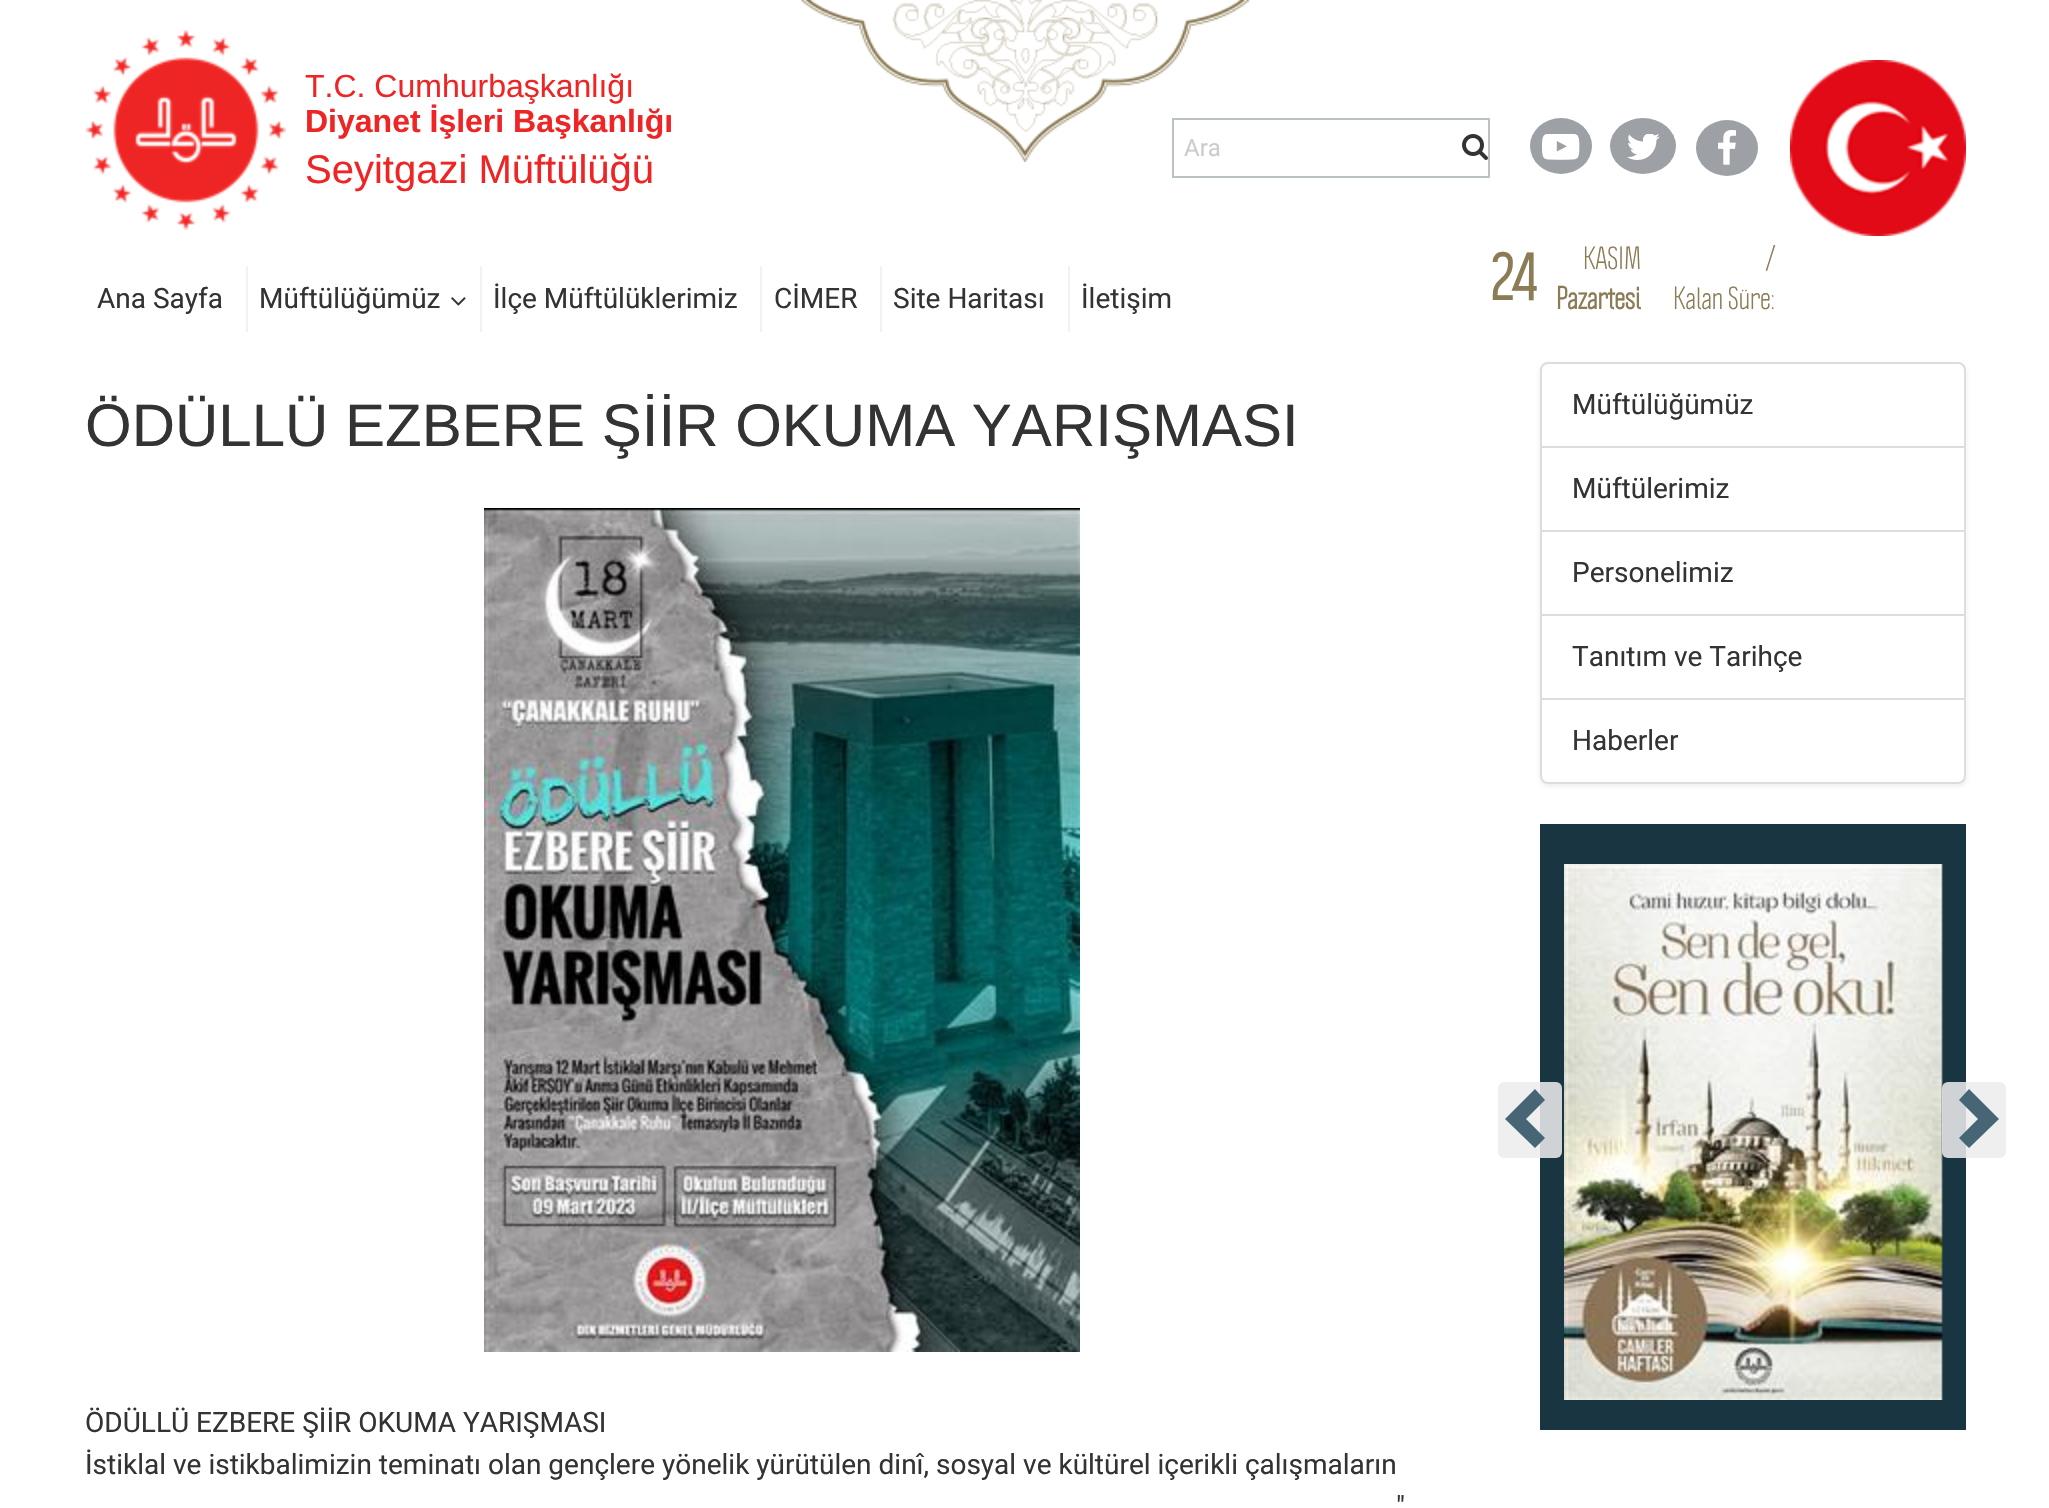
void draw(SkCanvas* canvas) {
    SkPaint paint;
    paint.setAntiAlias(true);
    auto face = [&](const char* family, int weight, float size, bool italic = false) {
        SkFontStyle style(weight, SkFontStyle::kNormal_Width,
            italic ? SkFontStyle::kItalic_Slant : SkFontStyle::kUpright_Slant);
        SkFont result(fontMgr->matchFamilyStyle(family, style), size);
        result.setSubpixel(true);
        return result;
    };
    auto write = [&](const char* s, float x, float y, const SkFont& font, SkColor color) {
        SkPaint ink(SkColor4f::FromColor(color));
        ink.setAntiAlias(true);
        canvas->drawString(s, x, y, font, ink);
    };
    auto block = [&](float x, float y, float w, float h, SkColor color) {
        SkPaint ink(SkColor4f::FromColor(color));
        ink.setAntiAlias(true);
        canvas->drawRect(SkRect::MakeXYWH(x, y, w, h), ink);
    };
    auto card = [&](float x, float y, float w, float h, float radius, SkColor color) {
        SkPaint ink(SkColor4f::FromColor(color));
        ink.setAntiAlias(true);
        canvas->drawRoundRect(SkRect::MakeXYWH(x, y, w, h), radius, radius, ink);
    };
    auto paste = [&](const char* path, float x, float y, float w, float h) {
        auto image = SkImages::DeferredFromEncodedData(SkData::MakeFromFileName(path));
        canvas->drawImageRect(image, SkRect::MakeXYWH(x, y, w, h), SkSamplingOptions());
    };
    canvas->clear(SK_ColorWHITE);
    paste("pic1.png", 800, 0, 450, 162);
    paste("pic2.png", 86, 30, 200, 200);
    auto kFont1 = face("Liberation Sans", 400, 32);
    write("T.C. Cumhurbaşkanlığı", 305, 97, kFont1, SkColorSetRGB(238, 37, 36));
    auto kFont2 = face("Liberation Sans", 700, 32);
    write("Diyanet İşleri Başkanlığı", 305, 132, kFont2, SkColorSetRGB(238, 37, 36));
    auto kFont3 = face("Liberation Sans", 400, 40);
    write("Seyitgazi Müftülüğü", 305, 183, kFont3, SkColorSetRGB(238, 37, 36));
    paint.setStyle(SkPaint::kStroke_Style);
    paint.setStrokeWidth(2);
    paint.setColor(SkColorSetRGB(186, 194, 198));
    canvas->drawRect(SkRect::MakeXYWH(1173, 119, 316, 58), paint);
    auto kFont4 = face("Roboto", 400, 24);
    write("Ara", 1184, 156, kFont4, SkColorSetRGB(202, 204, 206));
    paste("pic3.png", 1462, 134, 26, 26);
    paint.setStyle(SkPaint::kFill_Style);
    paint.setColor(SkColorSetRGB(157, 160, 165));
    canvas->drawOval(SkRect::MakeXYWH(1530, 118, 62, 56), paint);
    paste("pic4.png", 1542, 134, 38, 26);
    canvas->drawOval(SkRect::MakeXYWH(1610, 118, 66, 56), paint);
    paste("pic5.png", 1627, 134, 33, 26);
    canvas->drawOval(SkRect::MakeXYWH(1696, 120, 62, 56), paint);
    paste("pic6.png", 1718, 130, 18, 35);
    paste("pic7.png", 1790, 60, 176, 176);
    block(246, 266, 2, 66, SkColorSetRGB(242, 242, 242));
    auto kFont5 = face("Roboto", 400, 28);
    write("Ana Sayfa", 97, 308, kFont5, SkColorSetRGB(51, 51, 51));
    block(480, 266, 2, 66, SkColorSetRGB(242, 242, 242));
    write("Müftülüğümüz", 259, 308, kFont5, SkColorSetRGB(51, 51, 51));
    paste("pic8.png", 451, 297, 15, 9);
    block(760, 266, 2, 66, SkColorSetRGB(242, 242, 242));
    write("İlçe Müftülüklerimiz", 493, 308, kFont5, SkColorSetRGB(51, 51, 51));
    block(880, 266, 2, 66, SkColorSetRGB(242, 242, 242));
    write("CİMER", 774, 308, kFont5, SkColorSetRGB(51, 51, 51));
    block(1068, 266, 2, 66, SkColorSetRGB(242, 242, 242));
    write("Site Haritası", 893, 308, kFont5, SkColorSetRGB(51, 51, 51));
    write("İletişim", 1081, 308, kFont5, SkColorSetRGB(51, 51, 51));
    auto kFont6 = face("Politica", 700, 60);
    write("24", 1491, 300, kFont6, SkColorSetRGB(140, 124, 86));
    auto kFont7 = face("Politica", 400, 28);
    write("KASIM", 1583, 269, kFont7, SkColorSetRGB(140, 124, 86));
    auto kFont8 = face("Politica", 700, 28);
    write("Pazartesi", 1556, 309, kFont8, SkColorSetRGB(140, 124, 86));
    write("/", 1766, 269, kFont7, SkColorSetRGB(140, 124, 86));
    write("Kalan Süre:", 1673, 309, kFont7, SkColorSetRGB(140, 124, 86));
    auto kFont9 = face("Liberation Sans", 400, 60);
    write("ÖDÜLLÜ EZBERE ŞİİR OKUMA YARIŞMASI", 85, 446, kFont9, SkColorSetRGB(51, 51, 51));
    paste("pic9.png", 484, 508, 596, 844);
    write("ÖDÜLLÜ EZBERE ŞİİR OKUMA YARIŞMASI", 85, 1432, kFont5, SkColorSetRGB(51, 51, 51));
    write("İstiklal ve istikbalimizin teminatı olan gençlere yönelik yürütülen dinî, sosyal ve kültürel içerikli çalışmaların", 85, 1474, kFont5, SkColorSetRGB(51, 51, 51));
    write("\"", 1396, 1516, kFont5, SkColorSetRGB(51, 51, 51));
    canvas->save();
    canvas->clipPath(SkPathBuilder(SkPathFillType::kEvenOdd).moveTo(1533, 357).lineTo(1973, 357).lineTo(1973, 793).lineTo(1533, 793).close().moveTo(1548, 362).lineTo(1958, 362).cubicTo(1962.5f, 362, 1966, 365.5f, 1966, 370).lineTo(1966, 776).cubicTo(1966, 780.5f, 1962.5f, 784, 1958, 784).lineTo(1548, 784).cubicTo(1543.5f, 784, 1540, 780.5f, 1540, 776).lineTo(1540, 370).cubicTo(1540, 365.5f, 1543.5f, 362, 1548, 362).close().detach(), true);
    paint.setColor(SkColorSetARGB(18, 0, 0, 0));
    paint.setMaskFilter(SkMaskFilter::MakeBlur(kNormal_SkBlurStyle, 2));
    canvas->drawRoundRect(SkRect::MakeXYWH(1540, 364, 426, 422), 8, 8, paint);
    paint.setMaskFilter(nullptr);
    canvas->restore();
    paint.setStyle(SkPaint::kStroke_Style);
    paint.setColor(SkColorSetRGB(221, 221, 221));
    canvas->drawPath(SkPathBuilder().moveTo(1548, 363).lineTo(1958, 363).cubicTo(1962, 363, 1965, 366, 1965, 370).lineTo(1965, 447).lineTo(1541, 447).lineTo(1541, 370).cubicTo(1541, 366, 1544, 363, 1548, 363).close().detach(), paint);
    write("Müftülüğümüz", 1572, 414, kFont5, SkColorSetRGB(51, 51, 51));
    canvas->drawRect(SkRect::MakeXYWH(1541, 447, 424, 84), paint);
    write("Müftülerimiz", 1572, 498, kFont5, SkColorSetRGB(51, 51, 51));
    canvas->drawRect(SkRect::MakeXYWH(1541, 531, 424, 84), paint);
    write("Personelimiz", 1572, 582, kFont5, SkColorSetRGB(51, 51, 51));
    canvas->drawRect(SkRect::MakeXYWH(1541, 615, 424, 84), paint);
    write("Tanıtım ve Tarihçe", 1572, 666, kFont5, SkColorSetRGB(51, 51, 51));
    paint.setStyle(SkPaint::kFill_Style);
    paint.setColor(SK_ColorWHITE);
    canvas->drawPath(SkPathBuilder().moveTo(1541, 699).lineTo(1965, 699).lineTo(1965, 776).cubicTo(1965, 780, 1962, 783, 1958, 783).lineTo(1548, 783).cubicTo(1544, 783, 1541, 780, 1541, 776).close().detach(), paint);
    paint.setStyle(SkPaint::kStroke_Style);
    paint.setColor(SkColorSetRGB(221, 221, 221));
    canvas->drawPath(SkPathBuilder().moveTo(1541, 699).lineTo(1965, 699).lineTo(1965, 776).cubicTo(1965, 780, 1962, 783, 1958, 783).lineTo(1548, 783).cubicTo(1544, 783, 1541, 780, 1541, 776).close().detach(), paint);
    write("Haberler", 1572, 750, kFont5, SkColorSetRGB(51, 51, 51));
    block(1540, 824, 426, 606, SkColorSetRGB(25, 53, 65));
    paste("pic10.png", 1564, 864, 379, 536);
    card(1498, 1082, 64, 76, 6, SkColorSetARGB(219, 236, 236, 236));
    paint.setStyle(SkPaint::kFill_Style);
    paint.setColor(SkColorSetRGB(70, 102, 117));
    canvas->drawPath(SkPathBuilder().moveTo(1545, 1100).lineTo(1526, 1119).lineTo(1545, 1138).lineTo(1535, 1148).lineTo(1505, 1119).lineTo(1535, 1089).close().detach(), paint);
    card(1942, 1082, 64, 76, 6, SkColorSetARGB(219, 236, 236, 236));
    canvas->drawPath(SkPathBuilder().moveTo(1999, 1119).lineTo(1969, 1148).lineTo(1959, 1138).lineTo(1978, 1119).lineTo(1959, 1100).lineTo(1969, 1089).close().detach(), paint);
}
